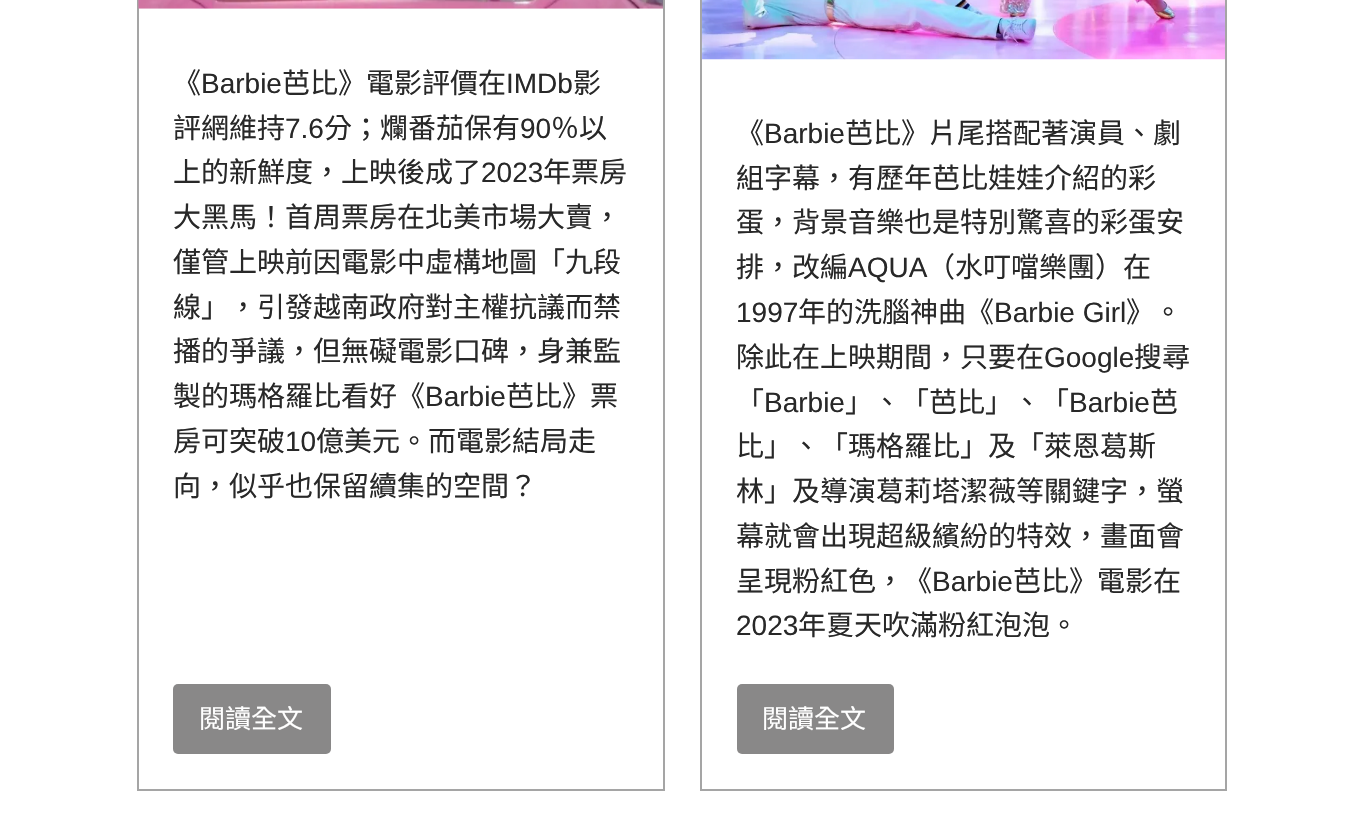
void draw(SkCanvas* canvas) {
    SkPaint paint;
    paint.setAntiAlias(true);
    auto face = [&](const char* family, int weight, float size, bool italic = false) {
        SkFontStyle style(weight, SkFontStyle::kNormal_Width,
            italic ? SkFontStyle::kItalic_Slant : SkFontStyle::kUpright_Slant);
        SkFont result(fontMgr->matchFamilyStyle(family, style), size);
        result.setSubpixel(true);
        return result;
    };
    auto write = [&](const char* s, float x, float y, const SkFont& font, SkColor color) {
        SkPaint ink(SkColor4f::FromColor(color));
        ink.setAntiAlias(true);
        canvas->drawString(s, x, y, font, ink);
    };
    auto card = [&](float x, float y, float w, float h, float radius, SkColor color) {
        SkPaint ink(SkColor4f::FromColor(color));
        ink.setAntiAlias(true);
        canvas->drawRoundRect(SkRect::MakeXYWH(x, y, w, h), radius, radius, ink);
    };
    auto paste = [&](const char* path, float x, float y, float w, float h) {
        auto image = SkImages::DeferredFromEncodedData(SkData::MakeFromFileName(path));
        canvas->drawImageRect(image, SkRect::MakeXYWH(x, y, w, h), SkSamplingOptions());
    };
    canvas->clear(SK_ColorWHITE);
    paint.setStyle(SkPaint::kStroke_Style);
    paint.setStrokeWidth(2);
    paint.setColor(SkColorSetRGB(165, 165, 165));
    canvas->drawRect(SkRect::MakeXYWH(138, -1, 526, 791), paint);
    paste("pic1.png", 138, 0, 525, 9);
    auto kFont1 = face("Noto Sans CJK TC", 400, 28);
    write("《", 173, 93, kFont1, SkColorSetRGB(40, 40, 40));
    auto kFont2 = face("Liberation Sans", 400, 28);
    write("Barbie", 201, 93, kFont2, SkColorSetRGB(40, 40, 40));
    write("芭比》電影評價在", 282, 93, kFont1, SkColorSetRGB(40, 40, 40));
    write("IMDb", 506, 93, kFont2, SkColorSetRGB(40, 40, 40));
    write("影", 573, 93, kFont1, SkColorSetRGB(40, 40, 40));
    write("評網維持", 173, 138, kFont1, SkColorSetRGB(40, 40, 40));
    write("7.6", 285, 138, kFont2, SkColorSetRGB(40, 40, 40));
    write("分；爛番茄保有", 324, 138, kFont1, SkColorSetRGB(40, 40, 40));
    write("90", 520, 138, kFont2, SkColorSetRGB(40, 40, 40));
    write("％以", 551, 138, kFont1, SkColorSetRGB(40, 40, 40));
    write("上的新鮮度，上映後成了", 173, 182, kFont1, SkColorSetRGB(40, 40, 40));
    write("2023", 481, 182, kFont2, SkColorSetRGB(40, 40, 40));
    write("年票房", 543, 182, kFont1, SkColorSetRGB(40, 40, 40));
    write("大黑馬！首周票房在北美市場大賣，", 173, 227, kFont1, SkColorSetRGB(40, 40, 40));
    write("僅管上映前因電影中虛構地圖「九段", 173, 272, kFont1, SkColorSetRGB(40, 40, 40));
    write("線」，引發越南政府對主權抗議而禁", 173, 317, kFont1, SkColorSetRGB(40, 40, 40));
    write("播的爭議，但無礙電影口碑，身兼監", 173, 361, kFont1, SkColorSetRGB(40, 40, 40));
    write("製的瑪格羅比看好《", 173, 406, kFont1, SkColorSetRGB(40, 40, 40));
    write("Barbie", 425, 406, kFont2, SkColorSetRGB(40, 40, 40));
    write("芭比》票", 506, 406, kFont1, SkColorSetRGB(40, 40, 40));
    write("房可突破", 173, 451, kFont1, SkColorSetRGB(40, 40, 40));
    write("10", 285, 451, kFont2, SkColorSetRGB(40, 40, 40));
    write("億美元。而電影結局走", 316, 451, kFont1, SkColorSetRGB(40, 40, 40));
    write("向，似乎也保留續集的空間？", 173, 496, kFont1, SkColorSetRGB(40, 40, 40));
    card(173, 684, 158, 70, 5, SkColorSetRGB(137, 136, 136));
    auto kFont3 = face("Noto Sans CJK TC", 400, 26);
    write("閱讀全文", 199, 728, kFont3, SK_ColorWHITE);
    canvas->drawRect(SkRect::MakeXYWH(701, -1, 525, 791), paint);
    paste("pic2.png", 701, 0, 524, 60);
    write("《", 736, 143, kFont1, SkColorSetRGB(40, 40, 40));
    write("Barbie", 764, 143, kFont2, SkColorSetRGB(40, 40, 40));
    write("芭比》片尾搭配著演員、劇", 845, 143, kFont1, SkColorSetRGB(40, 40, 40));
    write("組字幕，有歷年芭比娃娃介紹的彩", 736, 188, kFont1, SkColorSetRGB(40, 40, 40));
    write("蛋，背景音樂也是特別驚喜的彩蛋安", 736, 232, kFont1, SkColorSetRGB(40, 40, 40));
    write("排，改編", 736, 277, kFont1, SkColorSetRGB(40, 40, 40));
    write("AQUA", 848, 277, kFont2, SkColorSetRGB(40, 40, 40));
    write("（水叮噹樂團）在", 927, 277, kFont1, SkColorSetRGB(40, 40, 40));
    write("1997", 736, 322, kFont2, SkColorSetRGB(40, 40, 40));
    write("年的洗腦神曲《", 798, 322, kFont1, SkColorSetRGB(40, 40, 40));
    write("Barbie Girl", 994, 322, kFont2, SkColorSetRGB(40, 40, 40));
    write("》。", 1126, 322, kFont1, SkColorSetRGB(40, 40, 40));
    write("除此在上映期間，只要在", 736, 367, kFont1, SkColorSetRGB(40, 40, 40));
    write("Google", 1044, 367, kFont2, SkColorSetRGB(40, 40, 40));
    write("搜尋", 1134, 367, kFont1, SkColorSetRGB(40, 40, 40));
    write("「", 736, 412, kFont1, SkColorSetRGB(40, 40, 40));
    write("Barbie", 764, 412, kFont2, SkColorSetRGB(40, 40, 40));
    write("」、「芭比」、「", 845, 412, kFont1, SkColorSetRGB(40, 40, 40));
    write("Barbie", 1069, 412, kFont2, SkColorSetRGB(40, 40, 40));
    write("芭", 1150, 412, kFont1, SkColorSetRGB(40, 40, 40));
    write("比」、「瑪格羅比」及「萊恩葛斯", 736, 456, kFont1, SkColorSetRGB(40, 40, 40));
    write("林」及導演葛莉塔潔薇等關鍵字，螢", 736, 501, kFont1, SkColorSetRGB(40, 40, 40));
    write("幕就會出現超級繽紛的特效，畫面會", 736, 546, kFont1, SkColorSetRGB(40, 40, 40));
    write("呈現粉紅色，《", 736, 591, kFont1, SkColorSetRGB(40, 40, 40));
    write("Barbie", 932, 591, kFont2, SkColorSetRGB(40, 40, 40));
    write("芭比》電影在", 1013, 591, kFont1, SkColorSetRGB(40, 40, 40));
    write("2023", 736, 635, kFont2, SkColorSetRGB(40, 40, 40));
    write("年夏天吹滿粉紅泡泡。", 798, 635, kFont1, SkColorSetRGB(40, 40, 40));
    card(737, 684, 157, 70, 5, SkColorSetRGB(137, 136, 136));
    write("閱讀全文", 762, 728, kFont3, SK_ColorWHITE);
}
